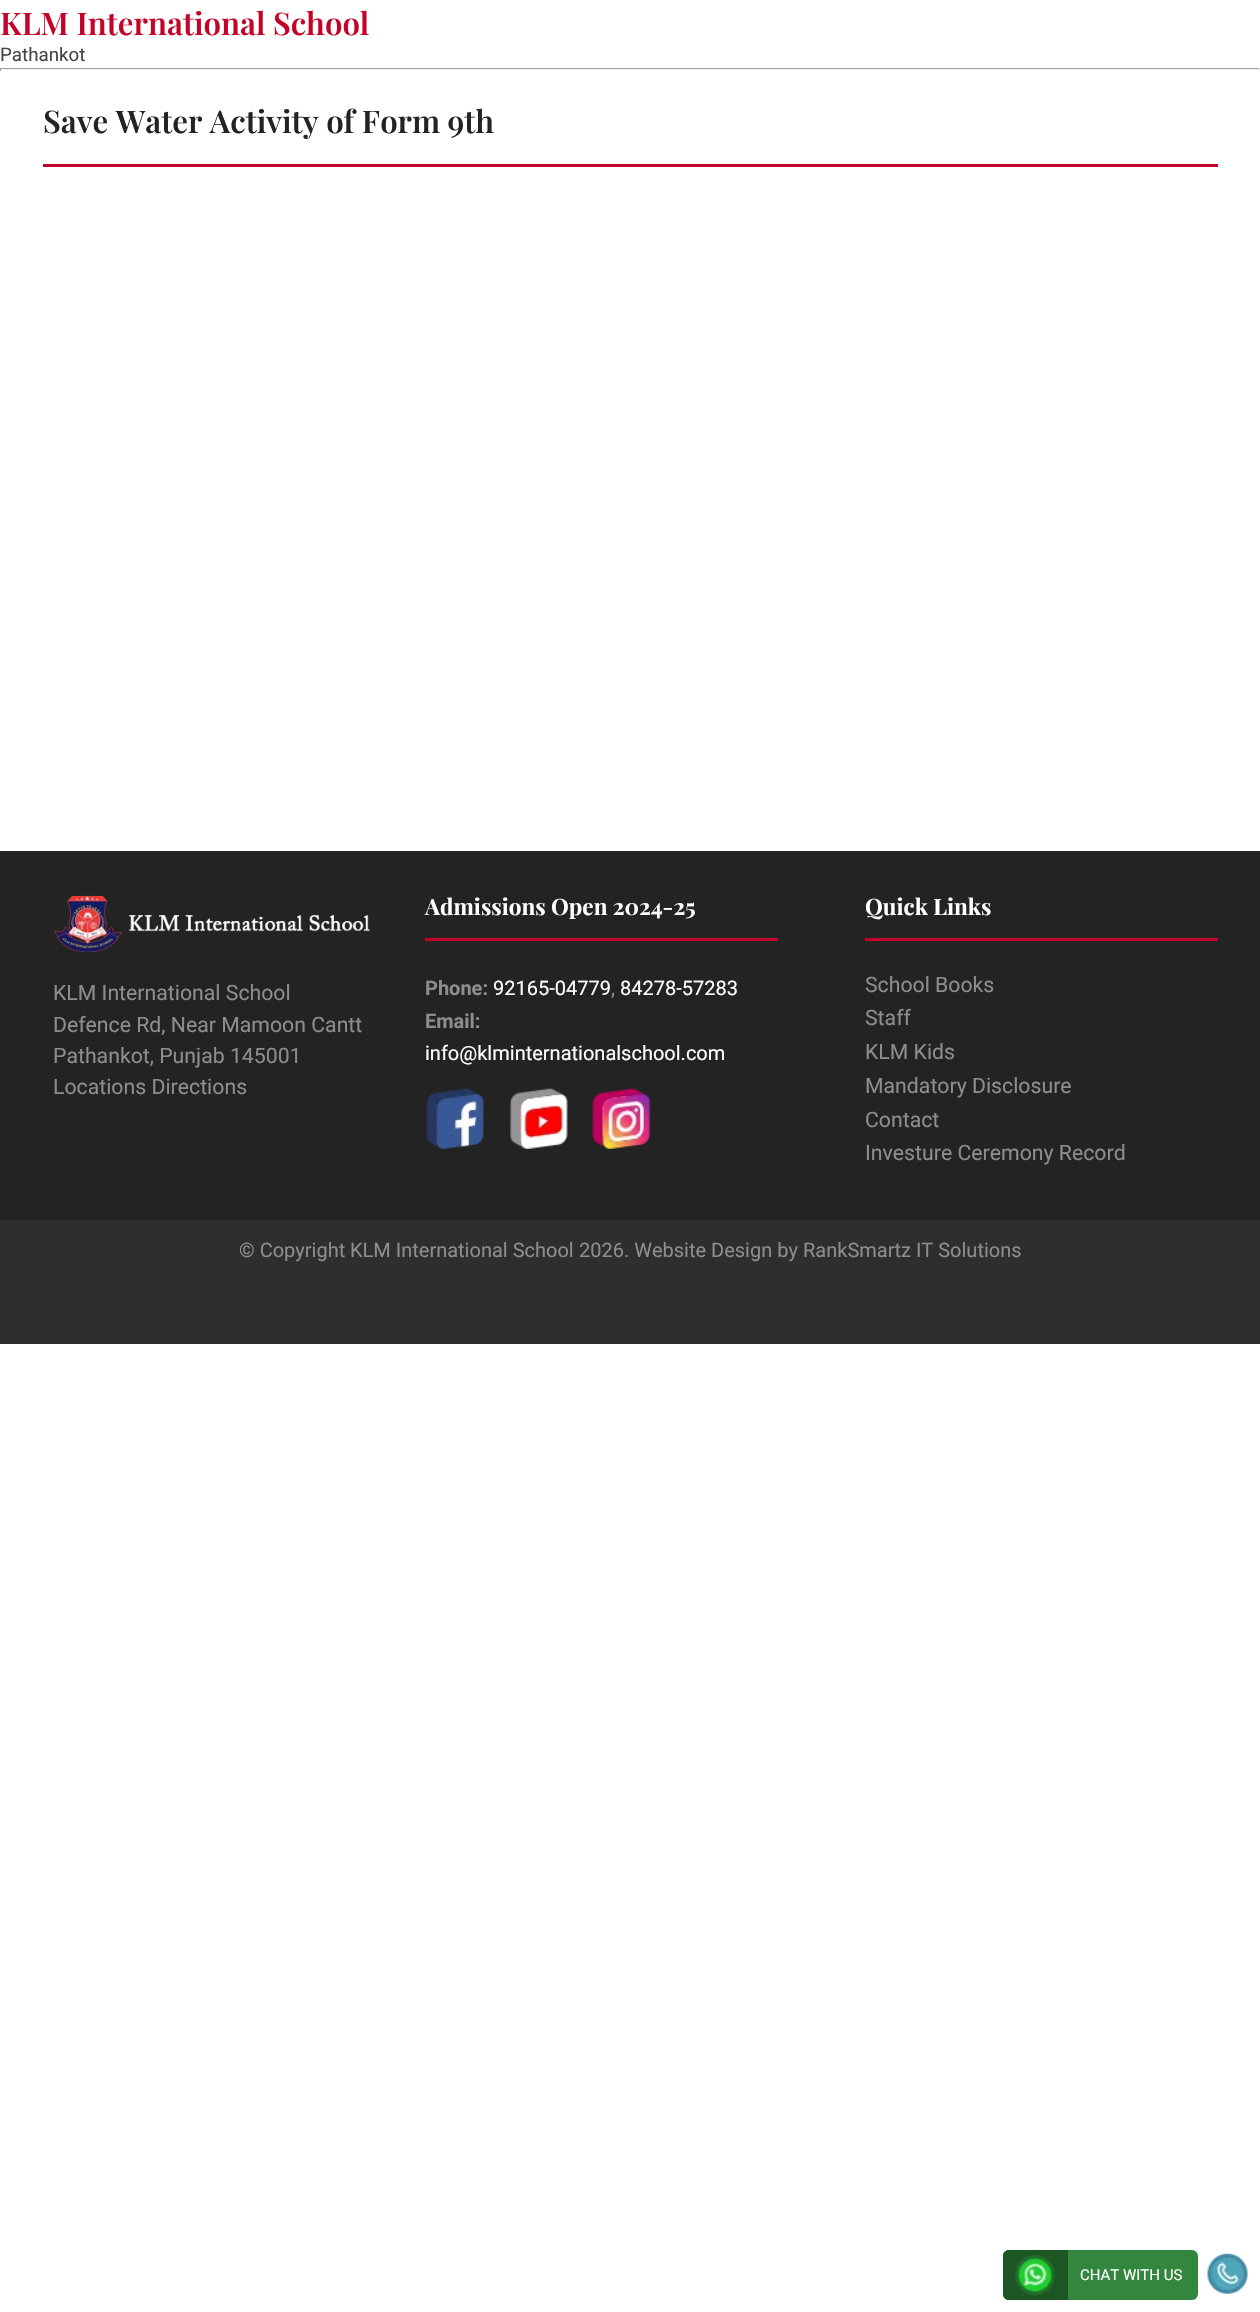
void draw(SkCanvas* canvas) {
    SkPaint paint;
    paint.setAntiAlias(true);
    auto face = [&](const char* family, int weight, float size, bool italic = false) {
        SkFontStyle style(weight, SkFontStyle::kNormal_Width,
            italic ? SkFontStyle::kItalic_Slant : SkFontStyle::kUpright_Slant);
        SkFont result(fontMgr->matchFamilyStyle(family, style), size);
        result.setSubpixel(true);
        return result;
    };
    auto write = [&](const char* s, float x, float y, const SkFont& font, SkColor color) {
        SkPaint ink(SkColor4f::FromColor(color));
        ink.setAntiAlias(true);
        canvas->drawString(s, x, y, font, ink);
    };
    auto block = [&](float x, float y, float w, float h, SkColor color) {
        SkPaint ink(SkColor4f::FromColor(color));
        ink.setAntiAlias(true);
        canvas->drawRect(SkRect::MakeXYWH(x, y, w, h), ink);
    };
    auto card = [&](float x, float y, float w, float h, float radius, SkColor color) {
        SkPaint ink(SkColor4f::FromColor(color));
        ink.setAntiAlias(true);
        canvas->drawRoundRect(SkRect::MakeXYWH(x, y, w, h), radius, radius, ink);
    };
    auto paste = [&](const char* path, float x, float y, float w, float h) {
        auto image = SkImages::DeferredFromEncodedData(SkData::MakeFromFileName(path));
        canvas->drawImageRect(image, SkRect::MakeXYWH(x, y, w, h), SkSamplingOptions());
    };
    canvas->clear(SK_ColorWHITE);
    auto kFont1 = face("Playfair Display", 600, 31.25f);
    write("KLM International School", 0, 35, kFont1, SkColorSetRGB(197, 2, 39));
    auto kFont2 = face("Roboto", 400, 18.75f);
    write("Pathankot", 0, 61, kFont2, SkColorSetRGB(72, 69, 69));
    block(0, 68, 1260, 1, SkColorSetRGB(159, 159, 159));
    block(1259, 68, 1, 3, SkColorSetRGB(238, 238, 238));
    block(0, 69, 1260, 1, SkColorSetRGB(238, 238, 238));
    block(0, 68, 1, 3, SkColorSetRGB(159, 159, 159));
    block(43, 164, 1175, 3, SkColorSetRGB(197, 2, 39));
    write("Save Water Activity of Form 9th", 43, 133, kFont1, SkColorSetRGB(35, 35, 35));
    block(0, 851, 1260, 369, SkColorSetRGB(35, 35, 35));
    paste("pic1.png", 54, 895, 316, 57);
    auto kFont3 = face("Roboto", 400, 21.25f);
    write("KLM International School", 53, 1000, kFont3, SkColorSetRGB(141, 141, 141));
    write("Defence Rd, Near Mamoon Cantt", 53, 1032, kFont3, SkColorSetRGB(141, 141, 141));
    write("Pathankot, Punjab 145001", 53, 1063, kFont3, SkColorSetRGB(141, 141, 141));
    write("Locations Directions", 53, 1094, kFont3, SkColorSetRGB(141, 141, 141));
    block(425, 938, 353, 3, SkColorSetRGB(197, 2, 39));
    auto kFont4 = face("Playfair Display", 700, 22.5f);
    write("Admissions Open 2024-25", 425, 915, kFont4, SK_ColorWHITE);
    auto kFont5 = face("Roboto", 700, 20);
    write("Phone:", 425, 995, kFont5, SkColorSetRGB(141, 141, 141));
    auto kFont6 = face("Roboto", 400, 20);
    write("92165-04779", 493, 995, kFont6, SK_ColorWHITE);
    write(",", 611, 995, kFont6, SkColorSetRGB(141, 141, 141));
    write("84278-57283", 620, 995, kFont6, SK_ColorWHITE);
    write("Email:", 425, 1028, kFont5, SkColorSetRGB(141, 141, 141));
    write("info@klminternationalschool.com", 425, 1060, kFont6, SK_ColorWHITE);
    paste("pic2.png", 426, 1088, 58, 61);
    paste("pic3.png", 510, 1088, 58, 61);
    paste("pic4.png", 592, 1088, 59, 61);
    block(865, 938, 353, 3, SkColorSetRGB(197, 2, 39));
    write("Quick Links", 865, 915, kFont4, SK_ColorWHITE);
    write("School Books", 865, 992, kFont3, SkColorSetRGB(141, 141, 141));
    write("Staff", 865, 1025, kFont3, SkColorSetRGB(141, 141, 141));
    write("KLM Kids", 865, 1059, kFont3, SkColorSetRGB(141, 141, 141));
    write("Mandatory Disclosure", 865, 1093, kFont3, SkColorSetRGB(141, 141, 141));
    write("Contact", 865, 1127, kFont3, SkColorSetRGB(141, 141, 141));
    write("Investure Ceremony Record", 865, 1160, kFont3, SkColorSetRGB(141, 141, 141));
    block(0, 1220, 1260, 124, SkColorSetRGB(46, 46, 46));
    write("© Copyright", 239, 1257, kFont6, SkColorSetRGB(141, 141, 141));
    write("KLM International School", 350, 1257, kFont6, SkColorSetRGB(141, 141, 141));
    write("2026. Website Design by", 579, 1257, kFont6, SkColorSetRGB(141, 141, 141));
    write("RankSmartz IT Solutions", 803, 1257, kFont6, SkColorSetRGB(141, 141, 141));
    card(1003, 2250, 195, 50, 6, SkColorSetRGB(51, 134, 62));
    paint.setColor(SkColorSetRGB(28, 86, 36));
    canvas->drawPath(SkPathBuilder().moveTo(1009, 2250).lineTo(1068, 2250).lineTo(1068, 2300).lineTo(1009, 2300).cubicTo(1005.5f, 2300, 1003, 2297.5f, 1003, 2294).lineTo(1003, 2256).cubicTo(1003, 2252.5f, 1005.5f, 2250, 1009, 2250).close().detach(), paint);
    paste("pic5.png", 1015, 2255, 40, 40);
    auto kFont7 = face("Roboto", 400, 15);
    write("CHAT WITH US", 1080, 2280, kFont7, SK_ColorWHITE);
    paste("pic6.png", 1207, 2253, 41, 41);
}
